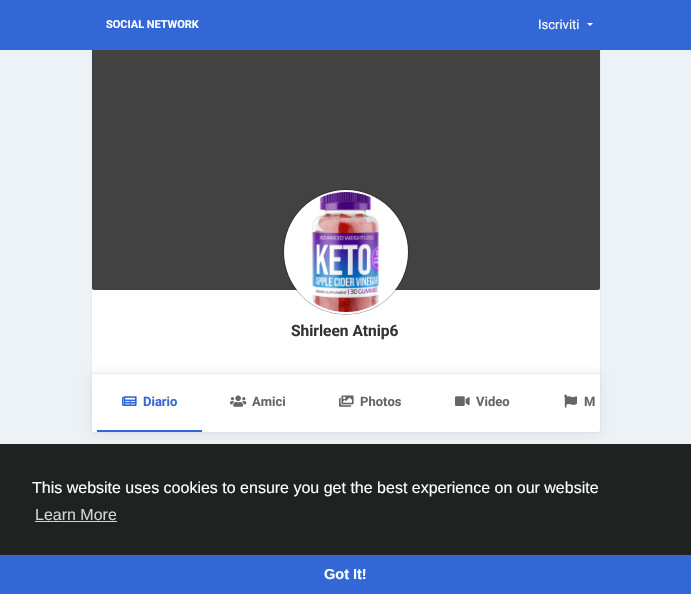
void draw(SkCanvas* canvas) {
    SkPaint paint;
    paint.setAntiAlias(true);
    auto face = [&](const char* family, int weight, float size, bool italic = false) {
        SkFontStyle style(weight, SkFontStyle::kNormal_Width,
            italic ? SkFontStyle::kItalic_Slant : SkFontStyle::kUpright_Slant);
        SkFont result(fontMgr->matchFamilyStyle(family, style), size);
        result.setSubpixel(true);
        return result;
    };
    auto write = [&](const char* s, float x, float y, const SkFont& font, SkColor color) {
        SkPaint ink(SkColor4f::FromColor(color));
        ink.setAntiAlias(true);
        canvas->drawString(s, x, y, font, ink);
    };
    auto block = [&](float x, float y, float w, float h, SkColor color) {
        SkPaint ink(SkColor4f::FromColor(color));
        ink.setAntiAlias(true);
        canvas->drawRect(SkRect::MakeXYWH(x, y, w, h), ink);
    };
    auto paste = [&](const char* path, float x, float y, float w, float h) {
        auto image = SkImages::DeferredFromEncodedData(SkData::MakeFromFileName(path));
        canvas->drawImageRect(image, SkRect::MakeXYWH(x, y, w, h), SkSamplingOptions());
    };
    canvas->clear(SkColorSetRGB(237, 242, 246));
    block(0, 0, 691, 50, SkColorSetRGB(51, 103, 214));
    auto kFont1 = face("Roboto", 700, 11);
    write("SOCIAL NETWORK", 106, 28, kFont1, SK_ColorWHITE);
    auto kFont2 = face("Roboto", 400, 13);
    write("Iscriviti", 538, 29, kFont2, SK_ColorWHITE);
    paint.setColor(SK_ColorWHITE);
    canvas->drawPath(SkPathBuilder().moveTo(587, 23).lineTo(593, 23).lineTo(590, 26).close().detach(), paint);
    block(600, 50, 1, 383, SkColorSetRGB(230, 236, 245));
    block(91, 432, 510, 1, SkColorSetRGB(230, 236, 245));
    block(91, 50, 1, 383, SkColorSetRGB(230, 236, 245));
    paint.setColor(SkColorSetRGB(66, 66, 66));
    canvas->drawPath(SkPathBuilder().moveTo(92, 50).lineTo(600, 50).lineTo(600, 288).cubicTo(600, 289, 599, 290, 598, 290).lineTo(94, 290).cubicTo(93, 290, 92, 289, 92, 288).close().detach(), paint);
    block(92, 290, 508, 83, SK_ColorWHITE);
    paint.setStyle(SkPaint::kStroke_Style);
    paint.setStrokeWidth(1);
    paint.setColor(SkColorSetARGB(77, 0, 0, 0));
    canvas->drawCircle(346, 252, 62.5f, paint);
    paint.setStyle(SkPaint::kFill_Style);
    paint.setColor(SK_ColorWHITE);
    canvas->drawCircle(346, 252, 62, paint);
    paste("pic1.png", 311, 192, 69, 120);
    auto kFont3 = face("Roboto", 700, 15.5f);
    write("Shirleen Atnip6", 291, 336, kFont3, SkColorSetRGB(51, 51, 51));
    paint.setColor(SkColorSetARGB(20, 0, 0, 0));
    paint.setMaskFilter(SkMaskFilter::MakeBlur(kNormal_SkBlurStyle, 6.5f));
    canvas->drawRoundRect(SkRect::MakeXYWH(92, 374, 508, 59), 2, 2, paint);
    paint.setMaskFilter(nullptr);
    paint.setColor(SK_ColorWHITE);
    canvas->drawPath(SkPathBuilder().moveTo(92, 373).lineTo(600, 373).lineTo(600, 430).cubicTo(600, 431, 599, 432, 598, 432).lineTo(94, 432).cubicTo(93, 432, 92, 431, 92, 430).close().detach(), paint);
    block(92, 373, 508, 1, SkColorSetRGB(230, 236, 245));
    block(97, 430, 105, 2, SkColorSetRGB(51, 103, 214));
    paste("pic2.png", 122, 396, 15, 10);
    auto kFont4 = face("Roboto", 700, 13);
    write("Diario", 143, 406, kFont4, SkColorSetRGB(51, 103, 214));
    paste("pic3.png", 230, 395, 17, 12);
    write("Amici", 252, 406, kFont4, SkColorSetRGB(102, 102, 102));
    paste("pic4.png", 339, 395, 15, 12);
    write("Photos", 360, 406, kFont4, SkColorSetRGB(102, 102, 102));
    paste("pic5.png", 455, 396, 15, 10);
    write("Video", 476, 406, kFont4, SkColorSetRGB(102, 102, 102));
    paste("pic6.png", 564, 394, 13, 14);
    write("M", 584, 406, kFont4, SkColorSetRGB(102, 102, 102));
    block(0, 444, 691, 111, SkColorSetRGB(30, 35, 33));
    auto kFont5 = face("Liberation Sans", 400, 16);
    write("This website uses cookies to ensure you get the best experience on our website", 32, 493, kFont5, SK_ColorWHITE);
    write("Learn More", 35, 520, kFont5, SkColorSetRGB(210, 211, 211));
    block(35, 521, 82, 1, SkColorSetRGB(210, 211, 211));
    block(0, 555, 691, 39, SkColorSetRGB(51, 103, 214));
    auto kFont6 = face("Liberation Sans", 700, 14.5f);
    write("Got It!", 324, 579, kFont6, SK_ColorWHITE);
}
